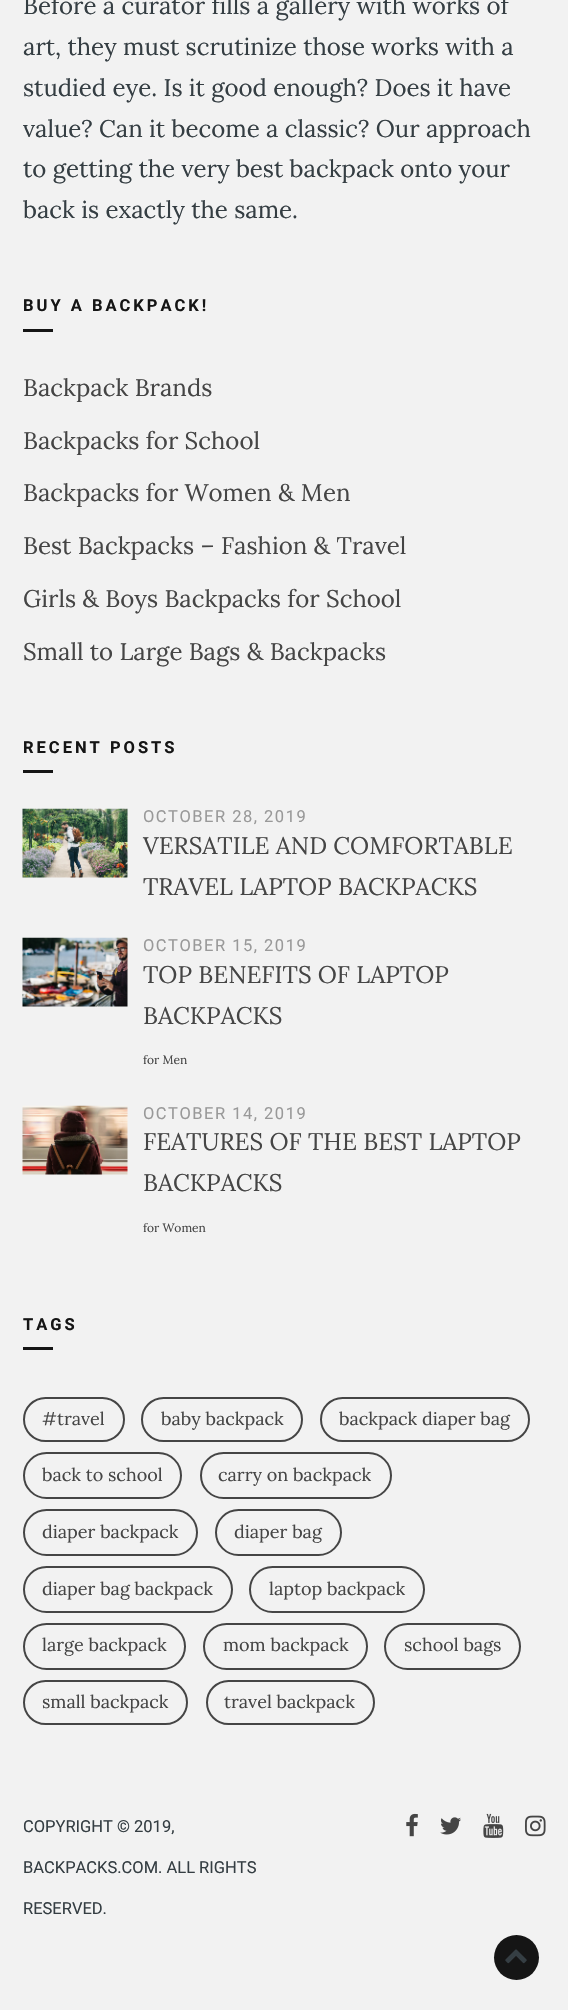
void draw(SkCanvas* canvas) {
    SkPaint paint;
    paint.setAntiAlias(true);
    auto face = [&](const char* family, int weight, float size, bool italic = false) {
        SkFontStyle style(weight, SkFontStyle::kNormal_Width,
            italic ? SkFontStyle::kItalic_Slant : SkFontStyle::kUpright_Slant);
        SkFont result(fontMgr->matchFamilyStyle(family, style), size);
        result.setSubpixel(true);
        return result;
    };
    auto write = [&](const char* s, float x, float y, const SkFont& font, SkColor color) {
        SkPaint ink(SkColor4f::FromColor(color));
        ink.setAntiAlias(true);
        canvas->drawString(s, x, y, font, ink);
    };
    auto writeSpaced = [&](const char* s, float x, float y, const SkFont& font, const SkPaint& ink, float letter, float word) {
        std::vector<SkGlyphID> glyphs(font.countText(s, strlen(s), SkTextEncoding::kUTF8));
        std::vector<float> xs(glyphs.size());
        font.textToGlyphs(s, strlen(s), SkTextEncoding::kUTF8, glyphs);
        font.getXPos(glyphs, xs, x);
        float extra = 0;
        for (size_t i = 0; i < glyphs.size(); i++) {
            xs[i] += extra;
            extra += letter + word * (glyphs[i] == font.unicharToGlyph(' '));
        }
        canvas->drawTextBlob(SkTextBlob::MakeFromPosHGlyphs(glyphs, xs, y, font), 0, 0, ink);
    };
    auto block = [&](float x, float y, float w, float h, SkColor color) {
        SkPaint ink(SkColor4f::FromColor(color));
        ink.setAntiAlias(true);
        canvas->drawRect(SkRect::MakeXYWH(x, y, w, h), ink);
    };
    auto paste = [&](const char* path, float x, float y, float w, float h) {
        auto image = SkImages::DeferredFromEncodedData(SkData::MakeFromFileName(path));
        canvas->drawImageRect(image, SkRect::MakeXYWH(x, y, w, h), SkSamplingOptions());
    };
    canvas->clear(SkColorSetRGB(242, 242, 242));
    auto kFont1 = face("Lora", 400, 24);
    write("Before a curator fills a gallery with works of", 23, 14, kFont1, SkColorSetRGB(53, 62, 67));
    write("art, they must scrutinize those works with a", 23, 55, kFont1, SkColorSetRGB(53, 62, 67));
    write("studied eye. Is it good enough? Does it have", 23, 96, kFont1, SkColorSetRGB(53, 62, 67));
    write("value? Can it become a classic? Our approach", 23, 137, kFont1, SkColorSetRGB(53, 62, 67));
    write("to getting the very best backpack onto your", 23, 177, kFont1, SkColorSetRGB(53, 62, 67));
    write("back is exactly the same.", 23, 218, kFont1, SkColorSetRGB(53, 62, 67));
    auto kFont2 = face("Roboto", 700, 16.5f);
    paint.setColor(SkColorSetRGB(21, 21, 21));
    writeSpaced("BUY A BACKPACK!", 23, 311, kFont2, paint, 3, 0);
    block(23, 329, 30, 3, SkColorSetRGB(21, 21, 21));
    write("Backpack Brands", 23, 396, kFont1, SkColorSetRGB(69, 69, 69));
    write("Backpacks for School", 23, 449, kFont1, SkColorSetRGB(69, 69, 69));
    write("Backpacks for Women & Men", 23, 501, kFont1, SkColorSetRGB(69, 69, 69));
    write("Best Backpacks – Fashion & Travel", 23, 554, kFont1, SkColorSetRGB(69, 69, 69));
    write("Girls & Boys Backpacks for School", 23, 607, kFont1, SkColorSetRGB(69, 69, 69));
    write("Small to Large Bags & Backpacks", 23, 660, kFont1, SkColorSetRGB(69, 69, 69));
    writeSpaced("RECENT POSTS", 23, 753, kFont2, paint, 3, 0);
    block(23, 770, 30, 3, SkColorSetRGB(21, 21, 21));
    paste("pic1.png", 22, 808, 106, 70);
    auto kFont3 = face("Roboto", 400, 16.5f);
    paint.setColor(SkColorSetRGB(153, 153, 153));
    writeSpaced("OCTOBER 28, 2019", 143, 822, kFont3, paint, 1.5f, 0);
    write("VERSATILE AND COMFORTABLE", 143, 854, kFont1, SkColorSetRGB(69, 69, 69));
    write("TRAVEL LAPTOP BACKPACKS", 143, 895, kFont1, SkColorSetRGB(69, 69, 69));
    paste("pic2.png", 22, 937, 106, 70);
    writeSpaced("OCTOBER 15, 2019", 143, 951, kFont3, paint, 1.5f, 0);
    write("TOP BENEFITS OF LAPTOP", 143, 983, kFont1, SkColorSetRGB(69, 69, 69));
    write("BACKPACKS", 143, 1024, kFont1, SkColorSetRGB(69, 69, 69));
    auto kFont4 = face("Lora", 400, 12);
    write("for Men", 143, 1064, kFont4, SkColorSetRGB(69, 69, 69));
    paste("pic3.png", 22, 1105, 106, 70);
    writeSpaced("OCTOBER 14, 2019", 143, 1119, kFont3, paint, 1.5f, 0);
    write("FEATURES OF THE BEST LAPTOP", 143, 1150, kFont1, SkColorSetRGB(69, 69, 69));
    write("BACKPACKS", 143, 1191, kFont1, SkColorSetRGB(69, 69, 69));
    write("for Women", 143, 1232, kFont4, SkColorSetRGB(69, 69, 69));
    paint.setColor(SkColorSetRGB(21, 21, 21));
    writeSpaced("TAGS", 23, 1330, kFont2, paint, 3, 0);
    block(23, 1347, 30, 3, SkColorSetRGB(21, 21, 21));
    paint.setStyle(SkPaint::kStroke_Style);
    paint.setStrokeWidth(2);
    paint.setColor(SkColorSetRGB(69, 69, 69));
    canvas->drawRoundRect(SkRect::MakeXYWH(24, 1398, 100, 43), 21.5f, 21.5f, paint);
    auto kFont5 = face("Lora", 400, 18);
    write("#travel", 42, 1425, kFont5, SkColorSetRGB(69, 69, 69));
    canvas->drawRoundRect(SkRect::MakeXYWH(142, 1398, 160, 43), 21.5f, 21.5f, paint);
    write("baby backpack", 161, 1425, kFont5, SkColorSetRGB(69, 69, 69));
    canvas->drawRoundRect(SkRect::MakeXYWH(321, 1398, 208, 43), 21.5f, 21.5f, paint);
    write("backpack diaper bag", 339, 1425, kFont5, SkColorSetRGB(69, 69, 69));
    canvas->drawRoundRect(SkRect::MakeXYWH(24, 1453, 157, 45), 22.5f, 22.5f, paint);
    write("back to school", 42, 1481, kFont5, SkColorSetRGB(69, 69, 69));
    canvas->drawRoundRect(SkRect::MakeXYWH(201, 1453, 190, 45), 22.5f, 22.5f, paint);
    write("carry on backpack", 218, 1481, kFont5, SkColorSetRGB(69, 69, 69));
    canvas->drawRoundRect(SkRect::MakeXYWH(24, 1510, 173, 45), 22.5f, 22.5f, paint);
    write("diaper backpack", 42, 1538, kFont5, SkColorSetRGB(69, 69, 69));
    canvas->drawRoundRect(SkRect::MakeXYWH(216, 1510, 125, 45), 22.5f, 22.5f, paint);
    write("diaper bag", 234, 1538, kFont5, SkColorSetRGB(69, 69, 69));
    canvas->drawRoundRect(SkRect::MakeXYWH(24, 1567, 208, 45), 22.5f, 22.5f, paint);
    write("diaper bag backpack", 42, 1595, kFont5, SkColorSetRGB(69, 69, 69));
    canvas->drawRoundRect(SkRect::MakeXYWH(250, 1567, 174, 45), 22.5f, 22.5f, paint);
    write("laptop backpack", 269, 1595, kFont5, SkColorSetRGB(69, 69, 69));
    canvas->drawRoundRect(SkRect::MakeXYWH(24, 1624, 161, 45), 22.5f, 22.5f, paint);
    write("large backpack", 42, 1651, kFont5, SkColorSetRGB(69, 69, 69));
    canvas->drawRoundRect(SkRect::MakeXYWH(204, 1624, 163, 45), 22.5f, 22.5f, paint);
    write("mom backpack", 223, 1651, kFont5, SkColorSetRGB(69, 69, 69));
    canvas->drawRoundRect(SkRect::MakeXYWH(385, 1624, 135, 45), 22.5f, 22.5f, paint);
    write("school bags", 404, 1651, kFont5, SkColorSetRGB(69, 69, 69));
    canvas->drawRoundRect(SkRect::MakeXYWH(24, 1681, 163, 43), 21.5f, 21.5f, paint);
    write("small backpack", 42, 1708, kFont5, SkColorSetRGB(69, 69, 69));
    canvas->drawRoundRect(SkRect::MakeXYWH(207, 1681, 167, 43), 21.5f, 21.5f, paint);
    write("travel backpack", 224, 1708, kFont5, SkColorSetRGB(69, 69, 69));
    write("COPYRIGHT © 2019,", 23, 1832, kFont3, SkColorSetRGB(53, 62, 67));
    write("BACKPACKS.COM. ALL RIGHTS", 23, 1873, kFont3, SkColorSetRGB(53, 62, 67));
    write("RESERVED.", 23, 1914, kFont3, SkColorSetRGB(53, 62, 67));
    paste("pic4.png", 406, 1813, 12, 24);
    paste("pic5.png", 440, 1817, 21, 18);
    paste("pic6.png", 483, 1813, 21, 25);
    paste("pic7.png", 525, 1815, 21, 22);
    paint.setStyle(SkPaint::kFill_Style);
    paint.setColor(SkColorSetRGB(21, 21, 21));
    canvas->drawCircle(516.5f, 1957.5f, 22.5f, paint);
    paste("pic8.png", 505, 1949, 22, 15);
}
